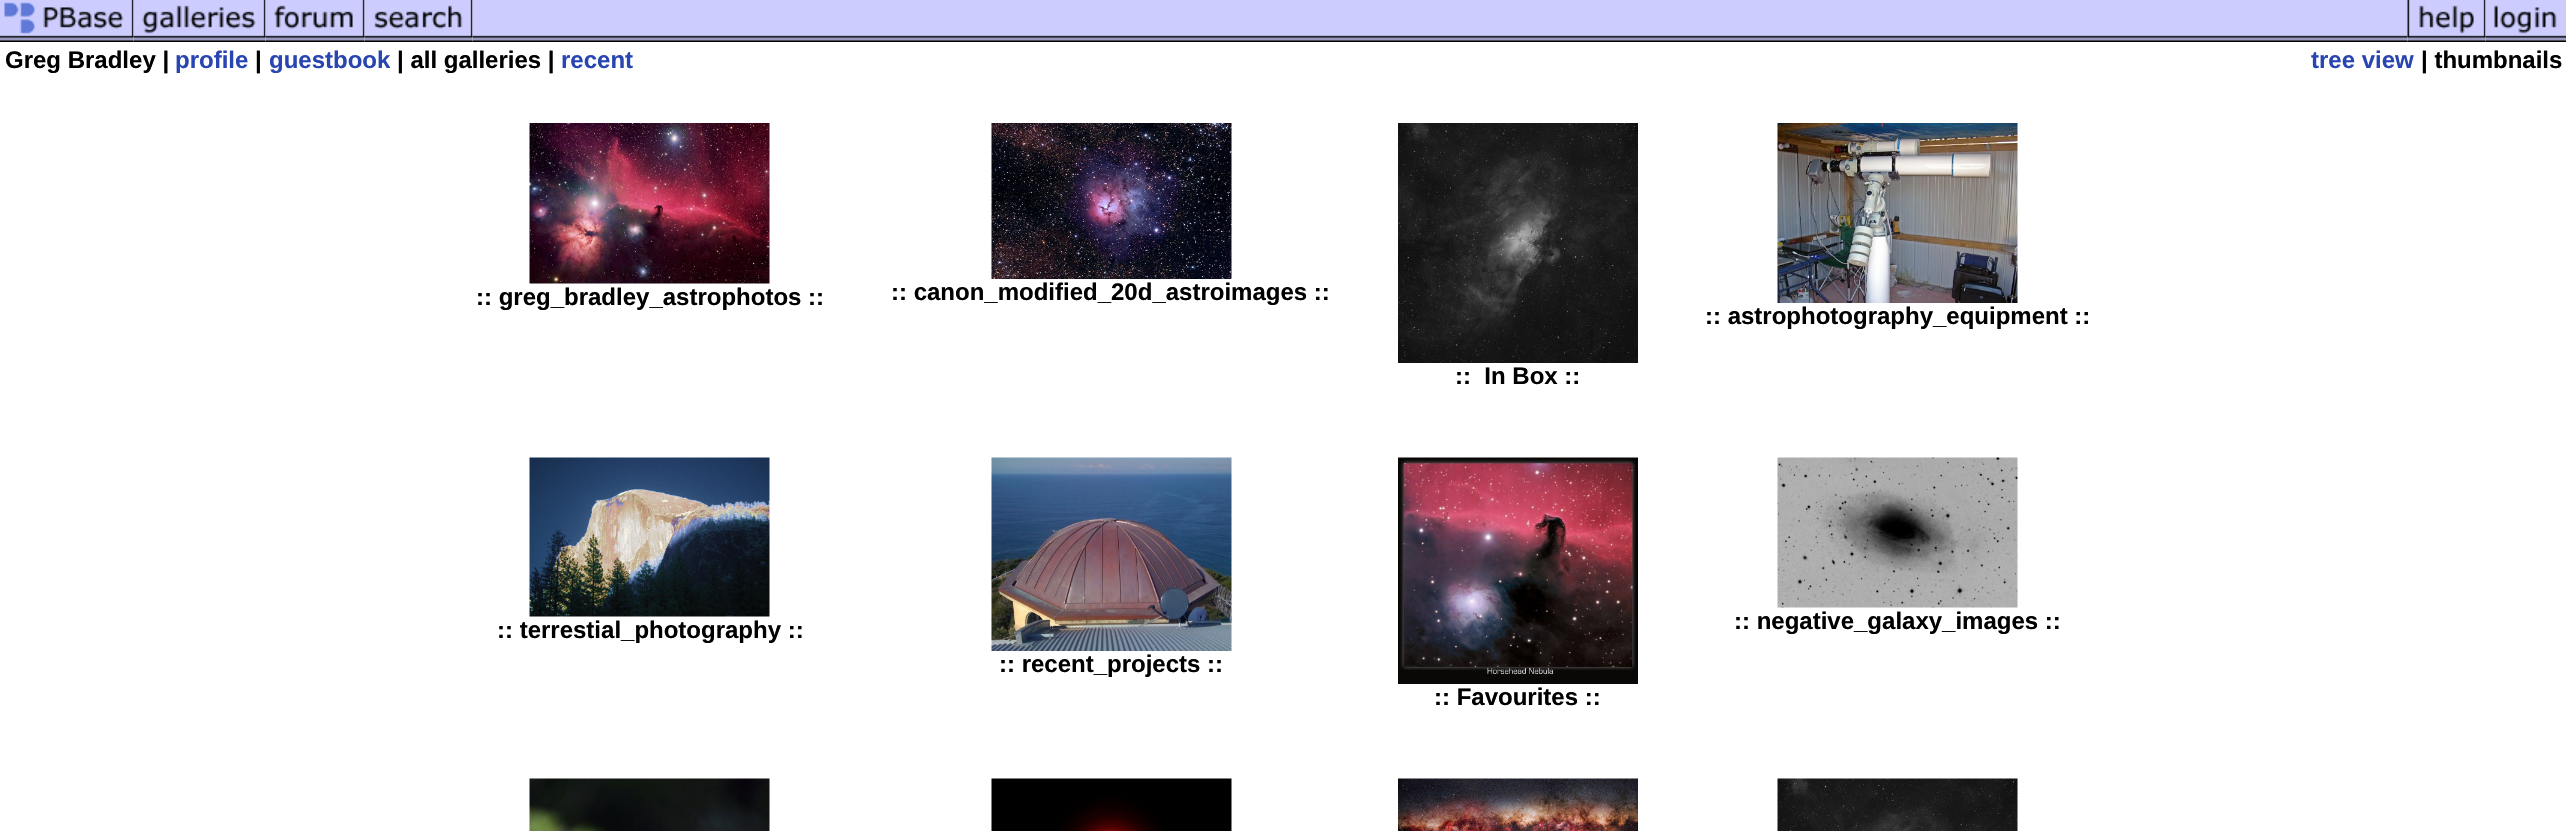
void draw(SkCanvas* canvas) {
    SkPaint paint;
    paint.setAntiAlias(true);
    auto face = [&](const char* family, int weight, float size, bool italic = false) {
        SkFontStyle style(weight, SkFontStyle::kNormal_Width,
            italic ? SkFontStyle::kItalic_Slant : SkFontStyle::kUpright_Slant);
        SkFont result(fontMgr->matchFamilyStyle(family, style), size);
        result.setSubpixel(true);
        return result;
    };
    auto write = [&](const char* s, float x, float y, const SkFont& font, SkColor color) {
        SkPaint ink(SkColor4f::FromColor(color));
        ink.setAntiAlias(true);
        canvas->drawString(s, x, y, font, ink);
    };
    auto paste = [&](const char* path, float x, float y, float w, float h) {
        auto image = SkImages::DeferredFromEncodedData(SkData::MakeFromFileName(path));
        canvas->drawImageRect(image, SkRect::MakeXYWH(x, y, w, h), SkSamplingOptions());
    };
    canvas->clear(SK_ColorWHITE);
    paste("pic1.png", 0, 0, 134, 42);
    paste("pic2.png", 133, 0, 133, 42);
    paste("pic3.png", 265, 0, 100, 42);
    paste("pic4.png", 364, 0, 109, 42);
    paste("pic5.png", 472, 0, 1936, 42);
    paste("pic6.png", 2407, 0, 79, 42);
    paste("pic7.png", 2485, 0, 81, 42);
    auto kFont1 = face("Liberation Sans", 700, 24);
    write("Greg Bradley |", 5, 68, kFont1, SK_ColorBLACK);
    write("profile", 175, 68, kFont1, SkColorSetRGB(40, 69, 177));
    write("|", 255, 68, kFont1, SK_ColorBLACK);
    write("guestbook", 269, 68, kFont1, SkColorSetRGB(40, 69, 177));
    write("| all galleries |", 397, 68, kFont1, SK_ColorBLACK);
    write("recent", 561, 68, kFont1, SkColorSetRGB(40, 69, 177));
    write("tree view", 2311, 68, kFont1, SkColorSetRGB(40, 69, 177));
    write("| thumbnails", 2421, 68, kFont1, SK_ColorBLACK);
    paste("pic8.png", 529, 123, 241, 161);
    write(":: greg_bradley_astrophotos ::", 476, 305, kFont1, SK_ColorBLACK);
    paste("pic9.png", 991, 123, 241, 156);
    write(":: canon_modified_20d_astroimages ::", 891, 300, kFont1, SK_ColorBLACK);
    paste("pic10.png", 1777, 123, 241, 180);
    write(":: astrophotography_equipment ::", 1705, 324, kFont1, SK_ColorBLACK);
    paste("pic11.png", 1398, 123, 240, 240);
    write("::  In Box ::", 1455, 384, kFont1, SK_ColorBLACK);
    paste("pic12.png", 529, 457, 241, 160);
    write(":: terrestial_photography ::", 497, 638, kFont1, SK_ColorBLACK);
    paste("pic13.png", 1777, 457, 241, 151);
    write(":: negative_galaxy_images ::", 1734, 629, kFont1, SK_ColorBLACK);
    paste("pic14.png", 991, 457, 241, 194);
    write(":: recent_projects ::", 999, 672, kFont1, SK_ColorBLACK);
    paste("pic15.png", 1398, 457, 240, 227);
    write(":: Favourites ::", 1434, 705, kFont1, SK_ColorBLACK);
    paste("pic16.png", 529, 778, 241, 53);
    paste("pic17.png", 991, 778, 241, 53);
    paste("pic18.png", 1398, 778, 240, 53);
    paste("pic19.png", 1777, 778, 241, 53);
}
